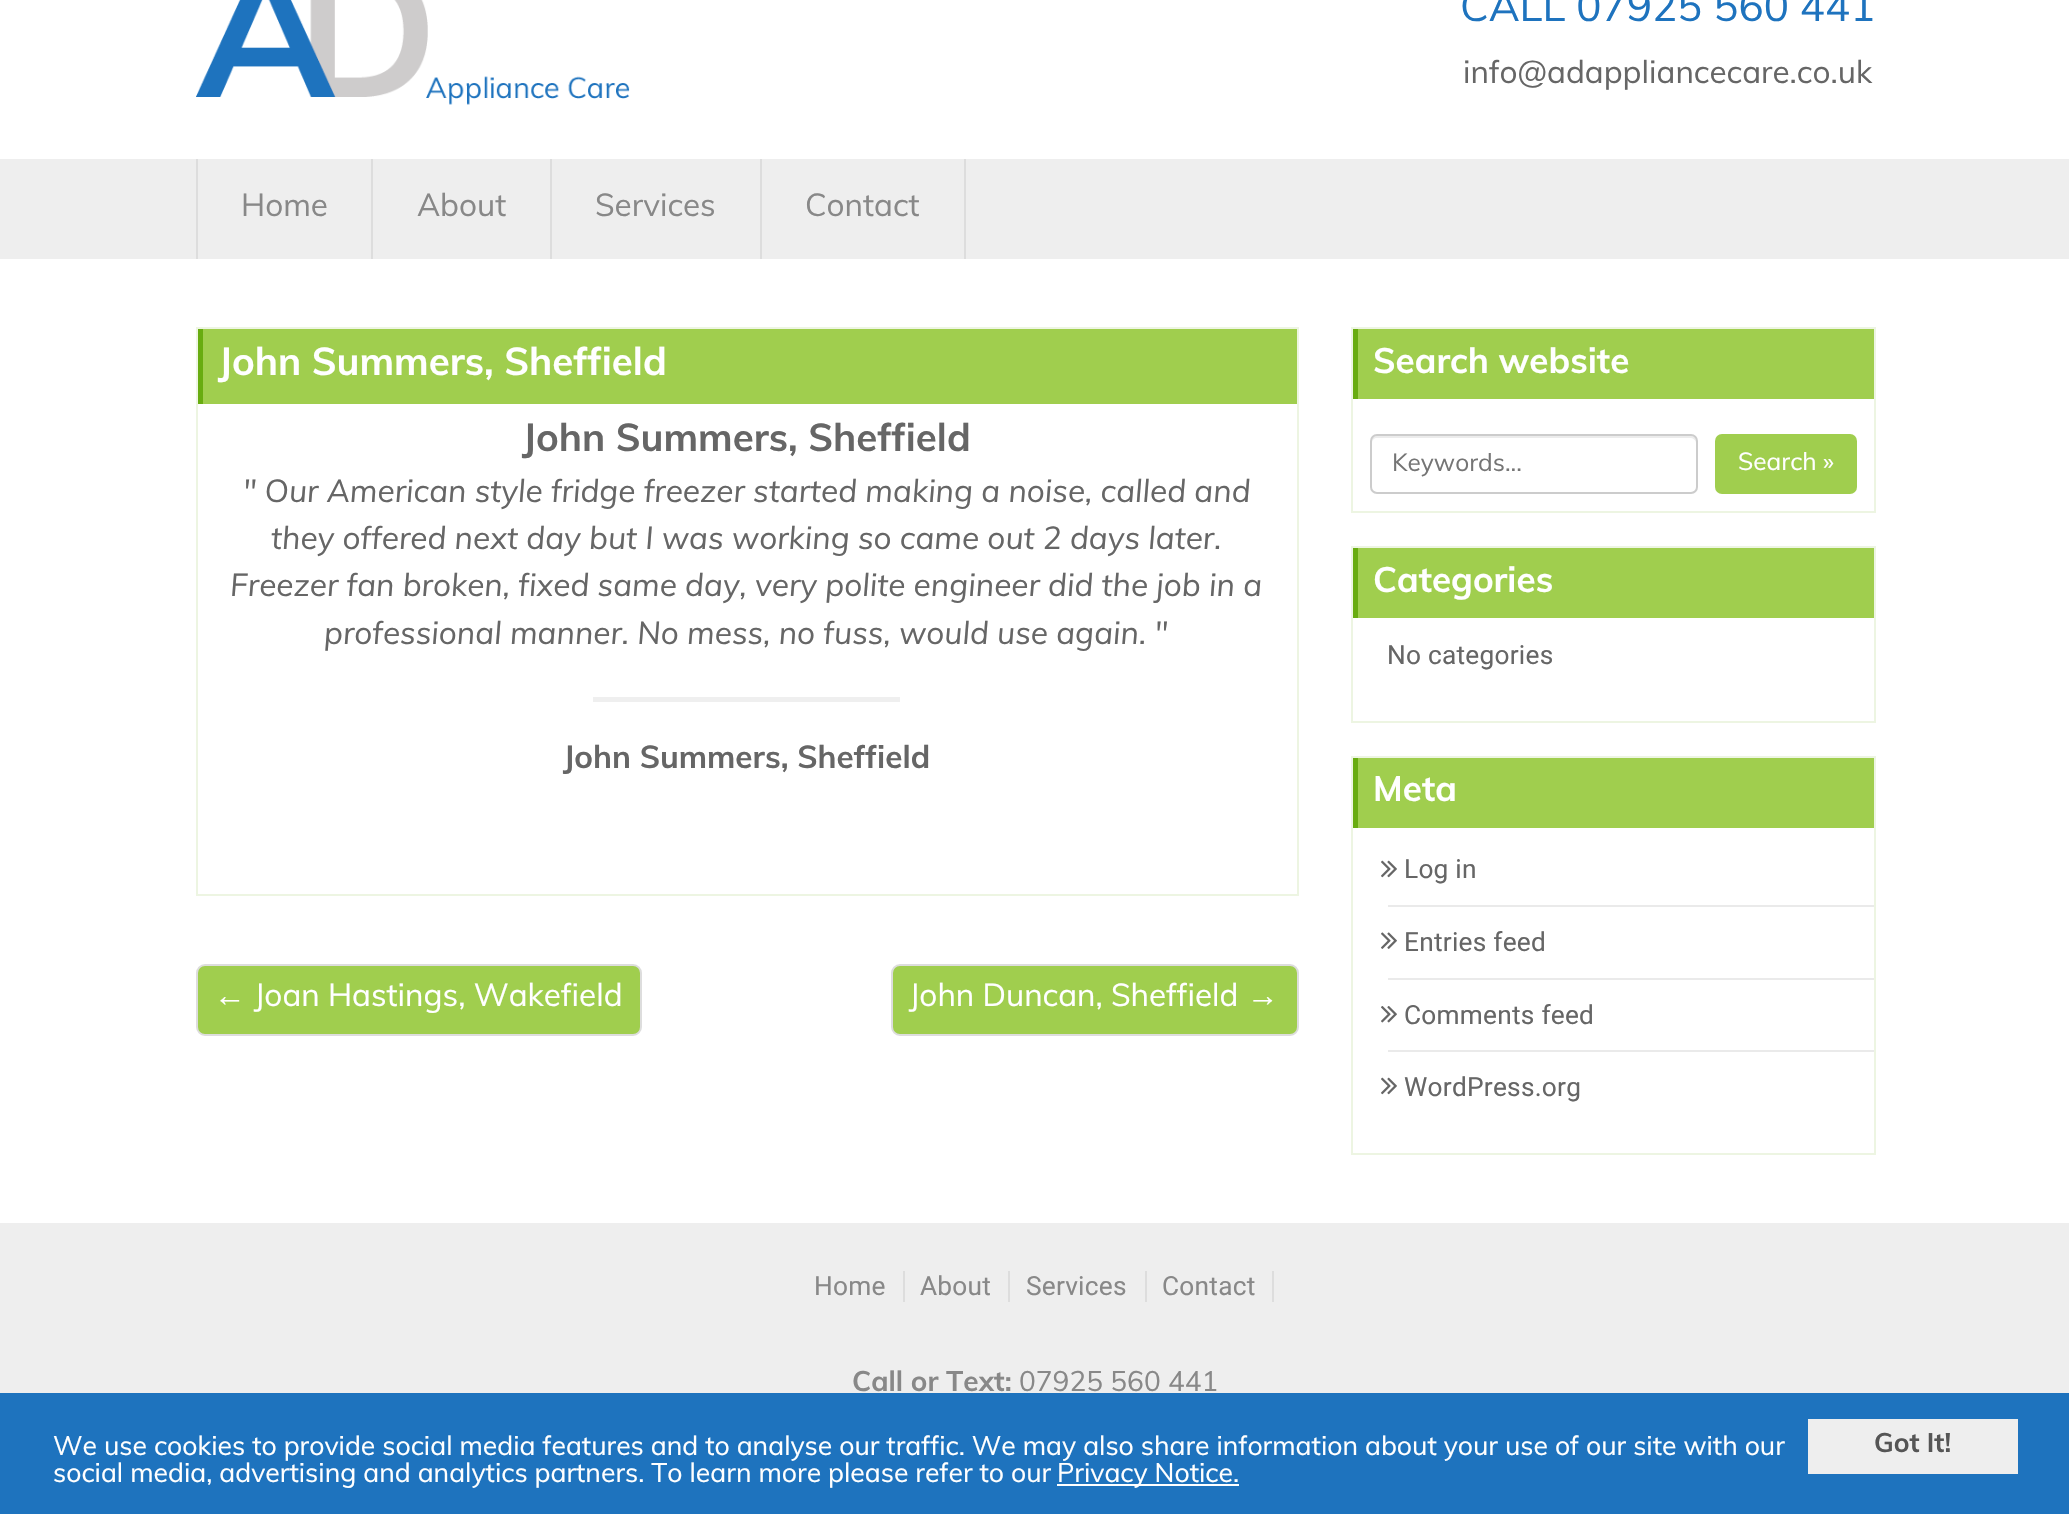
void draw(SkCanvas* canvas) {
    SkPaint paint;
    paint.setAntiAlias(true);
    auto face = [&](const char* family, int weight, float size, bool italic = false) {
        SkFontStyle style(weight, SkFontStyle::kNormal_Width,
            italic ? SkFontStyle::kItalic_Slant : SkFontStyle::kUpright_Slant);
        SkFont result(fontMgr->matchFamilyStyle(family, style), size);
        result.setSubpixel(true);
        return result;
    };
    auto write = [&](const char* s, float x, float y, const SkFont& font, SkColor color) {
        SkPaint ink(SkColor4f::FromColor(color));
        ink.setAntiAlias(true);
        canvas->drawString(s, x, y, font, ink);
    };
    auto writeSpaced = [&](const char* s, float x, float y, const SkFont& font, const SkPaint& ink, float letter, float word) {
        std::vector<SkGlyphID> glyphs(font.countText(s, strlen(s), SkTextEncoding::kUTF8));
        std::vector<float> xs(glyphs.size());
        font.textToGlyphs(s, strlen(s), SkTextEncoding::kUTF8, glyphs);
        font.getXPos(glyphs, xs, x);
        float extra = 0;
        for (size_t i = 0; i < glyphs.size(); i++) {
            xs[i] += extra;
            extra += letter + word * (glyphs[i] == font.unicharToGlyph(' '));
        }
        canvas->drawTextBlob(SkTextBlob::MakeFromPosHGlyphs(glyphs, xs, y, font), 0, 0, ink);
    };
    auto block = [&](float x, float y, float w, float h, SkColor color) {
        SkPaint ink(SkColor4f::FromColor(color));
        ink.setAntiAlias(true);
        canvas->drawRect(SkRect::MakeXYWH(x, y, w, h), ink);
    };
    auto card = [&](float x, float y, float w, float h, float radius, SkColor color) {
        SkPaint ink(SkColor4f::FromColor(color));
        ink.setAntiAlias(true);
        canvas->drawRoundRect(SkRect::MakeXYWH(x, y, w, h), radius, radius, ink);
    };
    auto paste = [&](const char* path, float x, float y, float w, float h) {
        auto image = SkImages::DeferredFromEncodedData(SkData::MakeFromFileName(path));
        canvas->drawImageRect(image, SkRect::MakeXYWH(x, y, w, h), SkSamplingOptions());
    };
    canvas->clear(SK_ColorWHITE);
    paste("pic1.png", 196, 0, 434, 105);
    auto kFont1 = face("Muli", 400, 42);
    write("CALL 07925 560 441", 1460, 21, kFont1, SkColorSetRGB(30, 115, 190));
    auto kFont2 = face("Muli", 400, 31.5f);
    write("info@adappliancecare.co.uk", 1463, 83, kFont2, SkColorSetRGB(102, 102, 102));
    block(0, 159, 2069, 100, SkColorSetRGB(238, 238, 238));
    block(196, 159, 2, 100, SkColorSetRGB(221, 221, 221));
    block(371, 159, 2, 100, SkColorSetRGB(221, 221, 221));
    write("Home", 241, 216, kFont2, SkColorSetRGB(136, 136, 136));
    block(550, 159, 2, 100, SkColorSetRGB(221, 221, 221));
    write("About", 417, 216, kFont2, SkColorSetRGB(136, 136, 136));
    block(760, 159, 2, 100, SkColorSetRGB(221, 221, 221));
    write("Services", 595, 216, kFont2, SkColorSetRGB(136, 136, 136));
    block(964, 159, 2, 100, SkColorSetRGB(221, 221, 221));
    write("Contact", 805, 216, kFont2, SkColorSetRGB(136, 136, 136));
    paint.setStyle(SkPaint::kStroke_Style);
    paint.setStrokeWidth(2);
    paint.setColor(SkColorSetRGB(237, 245, 226));
    canvas->drawRect(SkRect::MakeXYWH(197, 328, 1101, 567), paint);
    block(203, 329, 1094, 75, SkColorSetRGB(160, 206, 78));
    block(198, 329, 5, 75, SkColorSetRGB(104, 172, 16));
    auto kFont3 = face("Muli", 700, 38.5f);
    write("John Summers, Sheffield", 218, 375, kFont3, SK_ColorWHITE);
    write("John Summers, Sheffield", 522, 451, kFont3, SkColorSetRGB(102, 102, 102));
    auto kFont4 = face("Muli", 400, 31.5f, true);
    write("\" Our American style fridge freezer started making a noise, called and", 243, 502, kFont4, SkColorSetRGB(102, 102, 102));
    write("they offered next day but I was working so came out 2 days later.", 271, 549, kFont4, SkColorSetRGB(102, 102, 102));
    write("Freezer fan broken, fixed same day, very polite engineer did the job in a", 230, 596, kFont4, SkColorSetRGB(102, 102, 102));
    write("professional manner. No mess, no fuss, would use again. \"", 324, 644, kFont4, SkColorSetRGB(102, 102, 102));
    block(593, 697, 307, 5, SkColorSetRGB(239, 239, 239));
    auto kFont5 = face("Muli", 700, 31.5f);
    write("John Summers, Sheffield", 563, 768, kFont5, SkColorSetRGB(102, 102, 102));
    paint.setStyle(SkPaint::kFill_Style);
    paint.setColor(SkColorSetRGB(160, 206, 78));
    canvas->drawRoundRect(SkRect::MakeXYWH(197, 965, 444, 70), 8, 8, paint);
    paint.setStyle(SkPaint::kStroke_Style);
    paint.setColor(SkColorSetRGB(221, 221, 221));
    canvas->drawRoundRect(SkRect::MakeXYWH(197, 965, 444, 70), 8, 8, paint);
    auto kFont6 = face("Liberation Serif", 400, 31.5f);
    write("←", 214, 1006, kFont6, SK_ColorWHITE);
    write("Joan Hastings, Wakefield", 254, 1006, kFont2, SK_ColorWHITE);
    paint.setStyle(SkPaint::kFill_Style);
    paint.setColor(SkColorSetRGB(160, 206, 78));
    canvas->drawRoundRect(SkRect::MakeXYWH(892, 965, 406, 70), 8, 8, paint);
    paint.setStyle(SkPaint::kStroke_Style);
    paint.setColor(SkColorSetRGB(221, 221, 221));
    canvas->drawRoundRect(SkRect::MakeXYWH(892, 965, 406, 70), 8, 8, paint);
    write("John Duncan, Sheffield", 909, 1006, kFont2, SK_ColorWHITE);
    write("→", 1247, 1006, kFont6, SK_ColorWHITE);
    paint.setColor(SkColorSetRGB(237, 245, 226));
    canvas->drawRect(SkRect::MakeXYWH(1352, 328, 523, 184), paint);
    block(1358, 329, 516, 70, SkColorSetRGB(160, 206, 78));
    block(1353, 329, 5, 70, SkColorSetRGB(104, 172, 16));
    auto kFont7 = face("Muli", 700, 35);
    write("Search website", 1373, 373, kFont7, SK_ColorWHITE);
    paint.setStyle(SkPaint::kFill_Style);
    paint.setColor(SkColorSetRGB(236, 236, 236));
    canvas->drawPath(SkPathBuilder().moveTo(1377, 438).lineTo(1690, 438).cubicTo(1693, 438, 1696, 440, 1696, 443).lineTo(1696, 441).cubicTo(1696, 438, 1694, 436, 1691, 436).lineTo(1377, 436).cubicTo(1374, 436, 1372, 438, 1372, 441).lineTo(1372, 443).cubicTo(1372, 440, 1374, 438, 1377, 438).close().detach(), paint);
    paint.setStyle(SkPaint::kStroke_Style);
    paint.setColor(SkColorSetRGB(204, 204, 204));
    canvas->drawRoundRect(SkRect::MakeXYWH(1371, 435, 326, 58), 6, 6, paint);
    auto kFont8 = face("Muli", 400, 24.5f);
    write("Keywords...", 1392, 471, kFont8, SkColorSetRGB(117, 117, 117));
    card(1715, 434, 142, 60, 7, SkColorSetRGB(160, 206, 78));
    write("Search »", 1738, 470, kFont8, SK_ColorWHITE);
    paint.setColor(SkColorSetRGB(237, 245, 226));
    canvas->drawRect(SkRect::MakeXYWH(1352, 547, 523, 175), paint);
    block(1358, 548, 516, 70, SkColorSetRGB(160, 206, 78));
    block(1353, 548, 5, 70, SkColorSetRGB(104, 172, 16));
    write("Categories", 1373, 592, kFont7, SK_ColorWHITE);
    auto kFont9 = face("Roboto", 400, 26.25f);
    paint.setStyle(SkPaint::kFill_Style);
    paint.setColor(SkColorSetRGB(102, 102, 102));
    writeSpaced("No categories", 1387, 664, kFont9, paint, 0.25f, 0);
    paint.setStyle(SkPaint::kStroke_Style);
    paint.setColor(SkColorSetRGB(237, 245, 226));
    canvas->drawRect(SkRect::MakeXYWH(1352, 757, 523, 397), paint);
    block(1358, 758, 516, 70, SkColorSetRGB(160, 206, 78));
    block(1353, 758, 5, 70, SkColorSetRGB(104, 172, 16));
    write("Meta", 1373, 801, kFont7, SK_ColorWHITE);
    block(1388, 905, 486, 2, SkColorSetRGB(234, 234, 234));
    paste("pic2.png", 1381, 860, 16, 18);
    paint.setStyle(SkPaint::kFill_Style);
    paint.setColor(SkColorSetRGB(102, 102, 102));
    writeSpaced("Log in", 1404, 878, kFont9, paint, 0.25f, 0);
    block(1388, 978, 486, 2, SkColorSetRGB(234, 234, 234));
    paste("pic3.png", 1381, 932, 16, 17);
    writeSpaced("Entries feed", 1404, 951, kFont9, paint, 0.25f, 0);
    block(1388, 1050, 486, 2, SkColorSetRGB(234, 234, 234));
    paste("pic4.png", 1381, 1006, 16, 17);
    writeSpaced("Comments feed", 1404, 1024, kFont9, paint, 0.25f, 0);
    paste("pic2.png", 1381, 1077, 16, 18);
    writeSpaced("WordPress.org", 1404, 1096, kFont9, paint, 0.25f, 0);
    block(0, 1223, 2069, 170, SkColorSetRGB(238, 238, 238));
    paint.setColor(SkColorSetRGB(136, 136, 136));
    writeSpaced("Home", 814, 1295, kFont9, paint, 0.25f, 0);
    block(903, 1271, 2, 31, SkColorSetRGB(221, 221, 221));
    writeSpaced("About", 920, 1295, kFont9, paint, 0.25f, 0);
    block(1008, 1271, 2, 31, SkColorSetRGB(221, 221, 221));
    writeSpaced("Services", 1026, 1295, kFont9, paint, 0.25f, 0);
    block(1145, 1271, 2, 31, SkColorSetRGB(221, 221, 221));
    writeSpaced("Contact", 1162, 1295, kFont9, paint, 0.25f, 0);
    block(1272, 1271, 2, 31, SkColorSetRGB(221, 221, 221));
    auto kFont10 = face("Muli", 700, 28);
    write("Call or Text:", 852, 1391, kFont10, SkColorSetRGB(136, 136, 136));
    auto kFont11 = face("Muli", 400, 28);
    write("07925 560 441", 1019, 1391, kFont11, SkColorSetRGB(136, 136, 136));
    block(0, 1393, 2069, 121, SkColorSetRGB(30, 115, 190));
    auto kFont12 = face("Muli", 400, 26.6f);
    write("We use cookies to provide social media features and to analyse our traffic. We may also share information about your use of our site with our", 53, 1455, kFont12, SK_ColorWHITE);
    write("social media, advertising and analytics partners. To learn more please refer to our", 53, 1482, kFont12, SK_ColorWHITE);
    block(1057, 1484, 182, 2, SK_ColorWHITE);
    write("Privacy Notice.", 1057, 1482, kFont12, SK_ColorWHITE);
    block(1808, 1419, 210, 55, SkColorSetRGB(238, 238, 238));
    auto kFont13 = face("Muli", 700, 26.6f);
    write("Got It!", 1874, 1452, kFont13, SkColorSetRGB(85, 85, 85));
}
